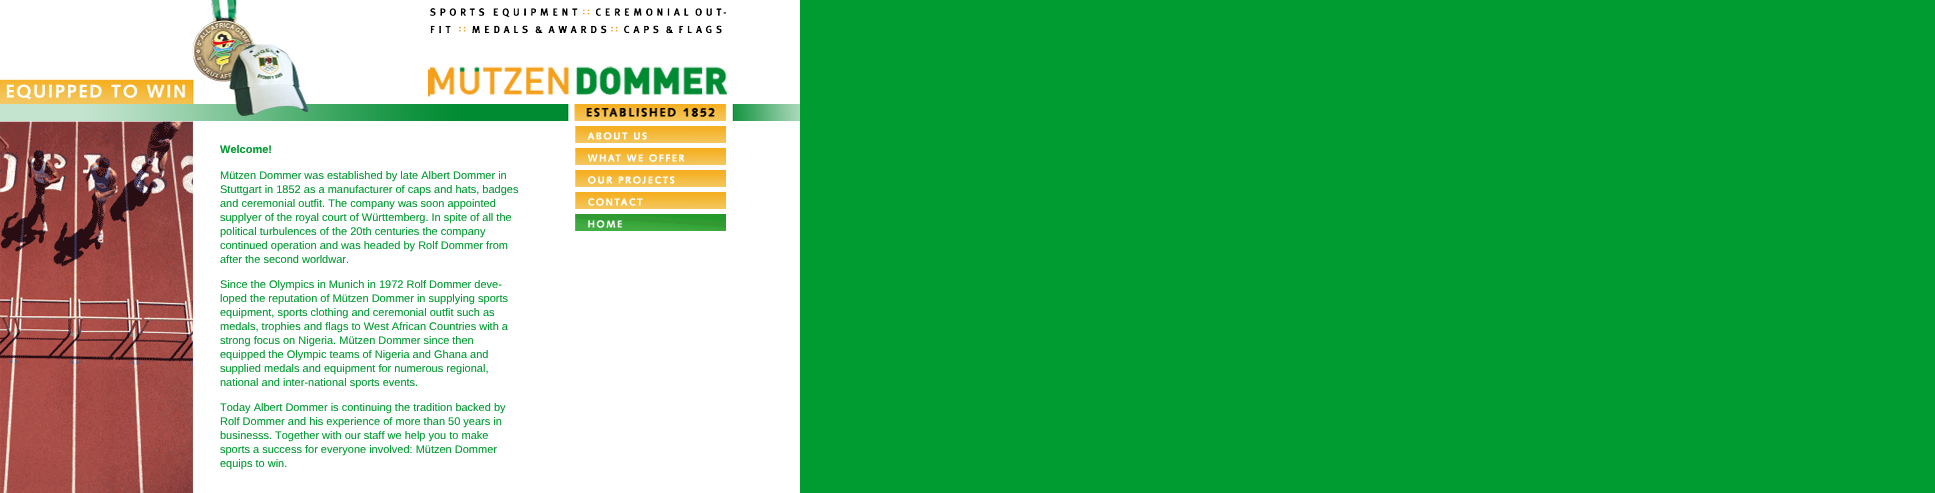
void draw(SkCanvas* canvas) {
    SkPaint paint;
    paint.setAntiAlias(true);
    auto face = [&](const char* family, int weight, float size, bool italic = false) {
        SkFontStyle style(weight, SkFontStyle::kNormal_Width,
            italic ? SkFontStyle::kItalic_Slant : SkFontStyle::kUpright_Slant);
        SkFont result(fontMgr->matchFamilyStyle(family, style), size);
        result.setSubpixel(true);
        return result;
    };
    auto write = [&](const char* s, float x, float y, const SkFont& font, SkColor color) {
        SkPaint ink(SkColor4f::FromColor(color));
        ink.setAntiAlias(true);
        canvas->drawString(s, x, y, font, ink);
    };
    auto block = [&](float x, float y, float w, float h, SkColor color) {
        SkPaint ink(SkColor4f::FromColor(color));
        ink.setAntiAlias(true);
        canvas->drawRect(SkRect::MakeXYWH(x, y, w, h), ink);
    };
    auto paste = [&](const char* path, float x, float y, float w, float h) {
        auto image = SkImages::DeferredFromEncodedData(SkData::MakeFromFileName(path));
        canvas->drawImageRect(image, SkRect::MakeXYWH(x, y, w, h), SkSamplingOptions());
    };
    canvas->clear(SkColorSetRGB(0, 155, 49));
    block(193, 121, 607, 372, SK_ColorWHITE);
    paste("pic1.png", 0, 0, 800, 121);
    paste("pic2.png", 430, 8, 296, 26);
    paste("pic3.png", 430, 66, 297, 31);
    paste("pic4.png", 0, 121, 193, 372);
    auto kFont1 = face("Liberation Sans", 700, 11);
    write("Welcome!", 220, 153, kFont1, SkColorSetRGB(0, 155, 49));
    auto kFont2 = face("Liberation Sans", 400, 11);
    write("Mützen Dommer was established by late Albert Dommer in", 220, 179, kFont2, SkColorSetRGB(0, 155, 49));
    write("Stuttgart in 1852 as a manufacturer of caps and hats, badges", 220, 193, kFont2, SkColorSetRGB(0, 155, 49));
    write("and ceremonial outfit. The company was soon appointed", 220, 207, kFont2, SkColorSetRGB(0, 155, 49));
    write("supplyer of the royal court of Württemberg. In spite of all the", 220, 221, kFont2, SkColorSetRGB(0, 155, 49));
    write("political turbulences of the 20th centuries the company", 220, 235, kFont2, SkColorSetRGB(0, 155, 49));
    write("continued operation and was headed by Rolf Dommer from", 220, 249, kFont2, SkColorSetRGB(0, 155, 49));
    write("after the second worldwar.", 220, 263, kFont2, SkColorSetRGB(0, 155, 49));
    write("Since the Olympics in Munich in 1972 Rolf Dommer deve-", 220, 288, kFont2, SkColorSetRGB(0, 155, 49));
    write("loped the reputation of Mützen Dommer in supplying sports", 220, 302, kFont2, SkColorSetRGB(0, 155, 49));
    write("equipment, sports clothing and ceremonial outfit such as", 220, 316, kFont2, SkColorSetRGB(0, 155, 49));
    write("medals, trophies and flags to West African Countries with a", 220, 330, kFont2, SkColorSetRGB(0, 155, 49));
    write("strong focus on Nigeria. Mützen Dommer since then", 220, 344, kFont2, SkColorSetRGB(0, 155, 49));
    write("equipped the Olympic teams of Nigeria and Ghana and", 220, 358, kFont2, SkColorSetRGB(0, 155, 49));
    write("supplied medals and equipment for numerous regional,", 220, 372, kFont2, SkColorSetRGB(0, 155, 49));
    write("national and inter-national sports events.", 220, 386, kFont2, SkColorSetRGB(0, 155, 49));
    write("Today Albert Dommer is continuing the tradition backed by", 220, 411, kFont2, SkColorSetRGB(0, 155, 49));
    write("Rolf Dommer and his experience of more than 50 years in", 220, 425, kFont2, SkColorSetRGB(0, 155, 49));
    write("businesss. Together with our staff we help you to make", 220, 439, kFont2, SkColorSetRGB(0, 155, 49));
    write("sports a success for everyone involved: Mützen Dommer", 220, 453, kFont2, SkColorSetRGB(0, 155, 49));
    write("equips to win.", 220, 467, kFont2, SkColorSetRGB(0, 155, 49));
    paste("pic5.png", 575, 126, 151, 17);
    paste("pic6.png", 575, 148, 151, 17);
    paste("pic7.png", 575, 170, 151, 17);
    paste("pic8.png", 575, 192, 151, 17);
    paste("pic9.png", 575, 214, 151, 17);
}
